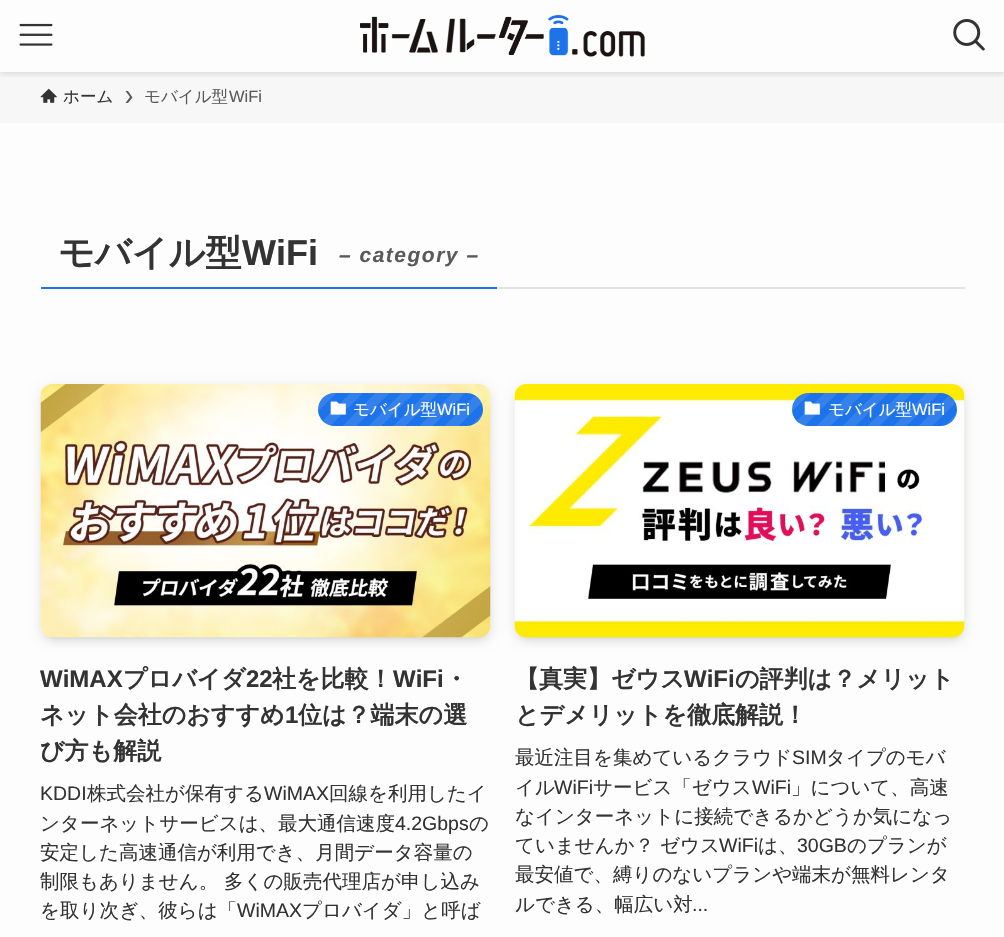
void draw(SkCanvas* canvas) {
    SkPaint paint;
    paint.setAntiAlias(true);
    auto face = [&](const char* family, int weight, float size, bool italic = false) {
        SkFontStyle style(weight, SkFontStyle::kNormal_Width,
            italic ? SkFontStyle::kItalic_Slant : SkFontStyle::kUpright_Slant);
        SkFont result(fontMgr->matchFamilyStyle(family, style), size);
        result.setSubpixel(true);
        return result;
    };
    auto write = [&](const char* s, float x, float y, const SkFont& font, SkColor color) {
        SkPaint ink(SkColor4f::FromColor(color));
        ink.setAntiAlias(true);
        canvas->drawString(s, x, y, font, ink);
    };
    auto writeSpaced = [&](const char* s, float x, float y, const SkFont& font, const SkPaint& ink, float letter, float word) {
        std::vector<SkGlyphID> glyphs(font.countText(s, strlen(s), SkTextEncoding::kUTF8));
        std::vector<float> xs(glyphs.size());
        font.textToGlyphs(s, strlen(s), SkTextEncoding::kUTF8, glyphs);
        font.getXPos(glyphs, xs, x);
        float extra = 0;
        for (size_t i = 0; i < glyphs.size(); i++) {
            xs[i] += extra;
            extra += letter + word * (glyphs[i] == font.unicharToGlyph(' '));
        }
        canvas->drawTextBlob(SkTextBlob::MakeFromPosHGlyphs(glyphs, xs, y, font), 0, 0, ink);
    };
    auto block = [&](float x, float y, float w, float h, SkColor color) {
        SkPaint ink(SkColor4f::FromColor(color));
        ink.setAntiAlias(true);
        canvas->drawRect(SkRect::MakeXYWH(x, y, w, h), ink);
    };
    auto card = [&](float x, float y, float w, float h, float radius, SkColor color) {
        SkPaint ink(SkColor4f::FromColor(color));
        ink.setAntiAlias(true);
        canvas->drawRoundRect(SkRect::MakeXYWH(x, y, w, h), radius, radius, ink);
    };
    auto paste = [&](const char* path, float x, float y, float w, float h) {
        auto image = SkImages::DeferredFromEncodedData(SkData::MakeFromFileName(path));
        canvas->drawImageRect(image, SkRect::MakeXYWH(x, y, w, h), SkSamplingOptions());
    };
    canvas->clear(SkColorSetRGB(253, 253, 253));
    block(0, 72, 1004, 51, SkColorSetRGB(247, 247, 247));
    canvas->save();
    canvas->clipRect(SkRect::MakeXYWH(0, 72, 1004, 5));
    paint.setColor(SkColorSetARGB(31, 0, 0, 0));
    paint.setMaskFilter(SkMaskFilter::MakeBlur(kNormal_SkBlurStyle, 3));
    canvas->drawRect(SkRect::MakeXYWH(0, 2, 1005, 72), paint);
    paint.setMaskFilter(nullptr);
    canvas->restore();
    paste("pic1.png", 19, 23, 34, 23);
    paste("pic2.png", 360, 15, 285, 42);
    paste("pic3.png", 953, 19, 32, 32);
    paste("pic4.png", 40, 88, 17, 15);
    auto kFont1 = face("WenQuanYi Zen Hei", 500, 16.5f);
    write("ホーム", 63, 102, kFont1, SkColorSetRGB(51, 51, 51));
    paint.setColor(SkColorSetRGB(90, 90, 90));
    canvas->drawPath(SkPathBuilder().moveTo(128, 91).lineTo(125.5f, 91).lineTo(130, 97).lineTo(125.5f, 103).lineTo(128, 103).lineTo(132.5f, 97.5f).close().detach(), paint);
    write("モバイル型", 144, 102, kFont1, SkColorSetRGB(90, 90, 90));
    auto kFont2 = face("Liberation Sans", 400, 16.5f);
    write("WiFi", 229, 102, kFont2, SkColorSetRGB(90, 90, 90));
    block(497, 287, 468, 2, SkColorSetRGB(226, 226, 226));
    block(41, 287, 456, 2, SkColorSetRGB(29, 115, 233));
    auto kFont3 = face("WenQuanYi Zen Hei", 700, 36);
    write("モバイル型", 58, 265, kFont3, SkColorSetRGB(51, 51, 51));
    auto kFont4 = face("Liberation Sans", 700, 36);
    write("WiFi", 242, 265, kFont4, SkColorSetRGB(51, 51, 51));
    auto kFont5 = face("Liberation Sans", 700, 21, true);
    writeSpaced("– category –", 339, 262, kFont5, paint, 1.5f, 0);
    paint.setColor(SkColorSetARGB(26, 0, 0, 0));
    paint.setMaskFilter(SkMaskFilter::MakeBlur(kNormal_SkBlurStyle, 3));
    canvas->drawRoundRect(SkRect::MakeXYWH(47, 396, 438, 242), 6, 6, paint);
    paint.setMaskFilter(nullptr);
    paint.setMaskFilter(SkMaskFilter::MakeBlur(kNormal_SkBlurStyle, 6));
    canvas->drawRoundRect(SkRect::MakeXYWH(41, 387, 450, 254), 12, 12, paint);
    paint.setMaskFilter(nullptr);
    paste("pic5.png", 40, 384, 451, 254);
    card(318, 393, 165, 33, 16.5f, SkColorSetRGB(29, 115, 233));
    {
        const SkColor colors[] = {SkColorSetARGB(26, 255, 255, 255), SkColorSetARGB(26, 255, 255, 255), SkColorSetARGB(0, 255, 255, 255), SkColorSetARGB(0, 255, 255, 255), SkColorSetARGB(26, 255, 255, 255), SkColorSetARGB(26, 255, 255, 255), SkColorSetARGB(0, 255, 255, 255), SkColorSetARGB(0, 255, 255, 255), SkColorSetARGB(26, 255, 255, 255), SkColorSetARGB(26, 255, 255, 255), SkColorSetARGB(0, 255, 255, 255), SkColorSetARGB(0, 255, 255, 255), SkColorSetARGB(26, 255, 255, 255), SkColorSetARGB(26, 255, 255, 255), SkColorSetARGB(0, 255, 255, 255), SkColorSetARGB(0, 255, 255, 255), SkColorSetARGB(26, 255, 255, 255), SkColorSetARGB(26, 255, 255, 255), SkColorSetARGB(0, 255, 255, 255), SkColorSetARGB(0, 255, 255, 255), SkColorSetARGB(26, 255, 255, 255), SkColorSetARGB(26, 255, 255, 255), SkColorSetARGB(0, 255, 255, 255), SkColorSetARGB(0, 255, 255, 255), SkColorSetARGB(26, 255, 255, 255), SkColorSetARGB(26, 255, 255, 255), SkColorSetARGB(0, 255, 255, 255), SkColorSetARGB(0, 255, 255, 255), SkColorSetARGB(26, 255, 255, 255), SkColorSetARGB(26, 255, 255, 255), SkColorSetARGB(0, 255, 255, 255), SkColorSetARGB(0, 0, 0, 0)};
        const float stops[] = {0, 0.06f, 0.06f, 0.12f, 0.12f, 0.19f, 0.19f, 0.25f, 0.25f, 0.31f, 0.31f, 0.38f, 0.38f, 0.44f, 0.44f, 0.5f, 0.5f, 0.56f, 0.56f, 0.62f, 0.62f, 0.69f, 0.69f, 0.75f, 0.75f, 0.81f, 0.81f, 0.88f, 0.88f, 0.94f, 0.94f, 1};
        const SkPoint ends[] = {{450, 459}, {348, 357}};
        paint.setShader(SkGradientShader::MakeLinear(ends, colors, stops, 32, SkTileMode::kClamp));
        paint.setAlpha(255);
    }
    canvas->drawRoundRect(SkRect::MakeXYWH(318, 393, 165, 33), 16.5f, 16.5f, paint);
    paste("pic6.png", 330, 401, 16, 14);
    write("モバイル型", 353, 415, kFont1, SK_ColorWHITE);
    write("WiFi", 437, 415, kFont2, SK_ColorWHITE);
    auto kFont6 = face("Liberation Sans", 700, 24);
    write("WiMAX", 40, 687, kFont6, SkColorSetRGB(51, 51, 51));
    auto kFont7 = face("WenQuanYi Zen Hei", 700, 24);
    write("プロバイダ", 123, 687, kFont7, SkColorSetRGB(51, 51, 51));
    write("22", 246, 687, kFont6, SkColorSetRGB(51, 51, 51));
    write("社を比較！", 272, 687, kFont7, SkColorSetRGB(51, 51, 51));
    write("WiFi", 393, 687, kFont6, SkColorSetRGB(51, 51, 51));
    write("・", 444, 687, kFont7, SkColorSetRGB(51, 51, 51));
    write("ネット会社のおすすめ", 40, 723, kFont7, SkColorSetRGB(51, 51, 51));
    write("1", 285, 723, kFont6, SkColorSetRGB(51, 51, 51));
    write("位は？端末の選", 298, 723, kFont7, SkColorSetRGB(51, 51, 51));
    write("び方も解説", 40, 759, kFont7, SkColorSetRGB(51, 51, 51));
    auto kFont8 = face("Liberation Sans", 400, 19.5f);
    write("KDDI", 40, 800, kFont8, SkColorSetRGB(51, 51, 51));
    auto kFont9 = face("WenQuanYi Zen Hei", 500, 19.5f);
    write("株式会社が保有する", 87, 800, kFont9, SkColorSetRGB(51, 51, 51));
    write("WiMAX", 264, 800, kFont8, SkColorSetRGB(51, 51, 51));
    write("回線を利用したイ", 329, 800, kFont9, SkColorSetRGB(51, 51, 51));
    write("ンターネットサービスは、最大通信速度", 40, 830, kFont9, SkColorSetRGB(51, 51, 51));
    write("4.2Gbps", 395, 830, kFont8, SkColorSetRGB(51, 51, 51));
    write("の", 469, 830, kFont9, SkColorSetRGB(51, 51, 51));
    write("安定した高速通信が利用でき、月間データ容量の", 40, 859, kFont9, SkColorSetRGB(51, 51, 51));
    write("制限もありません。 多くの販売代理店が申し込み", 40, 888, kFont9, SkColorSetRGB(51, 51, 51));
    write("を取り次ぎ、彼らは「", 40, 917, kFont9, SkColorSetRGB(51, 51, 51));
    write("WiMAX", 237, 917, kFont8, SkColorSetRGB(51, 51, 51));
    write("プロバイダ」と呼ば", 302, 917, kFont9, SkColorSetRGB(51, 51, 51));
    paint.setShader(nullptr);
    paint.setColor(SkColorSetARGB(26, 0, 0, 0));
    paint.setMaskFilter(SkMaskFilter::MakeBlur(kNormal_SkBlurStyle, 3));
    canvas->drawRoundRect(SkRect::MakeXYWH(521, 396, 438, 242), 6, 6, paint);
    paint.setMaskFilter(nullptr);
    paint.setMaskFilter(SkMaskFilter::MakeBlur(kNormal_SkBlurStyle, 6));
    canvas->drawRoundRect(SkRect::MakeXYWH(515, 387, 450, 254), 12, 12, paint);
    paint.setMaskFilter(nullptr);
    paste("pic7.png", 514, 384, 451, 254);
    card(792, 393, 165, 33, 16.5f, SkColorSetRGB(29, 115, 233));
    {
        const SkColor colors[] = {SkColorSetARGB(26, 255, 255, 255), SkColorSetARGB(26, 255, 255, 255), SkColorSetARGB(0, 255, 255, 255), SkColorSetARGB(0, 255, 255, 255), SkColorSetARGB(26, 255, 255, 255), SkColorSetARGB(26, 255, 255, 255), SkColorSetARGB(0, 255, 255, 255), SkColorSetARGB(0, 255, 255, 255), SkColorSetARGB(26, 255, 255, 255), SkColorSetARGB(26, 255, 255, 255), SkColorSetARGB(0, 255, 255, 255), SkColorSetARGB(0, 255, 255, 255), SkColorSetARGB(26, 255, 255, 255), SkColorSetARGB(26, 255, 255, 255), SkColorSetARGB(0, 255, 255, 255), SkColorSetARGB(0, 255, 255, 255), SkColorSetARGB(26, 255, 255, 255), SkColorSetARGB(26, 255, 255, 255), SkColorSetARGB(0, 255, 255, 255), SkColorSetARGB(0, 255, 255, 255), SkColorSetARGB(26, 255, 255, 255), SkColorSetARGB(26, 255, 255, 255), SkColorSetARGB(0, 255, 255, 255), SkColorSetARGB(0, 255, 255, 255), SkColorSetARGB(26, 255, 255, 255), SkColorSetARGB(26, 255, 255, 255), SkColorSetARGB(0, 255, 255, 255), SkColorSetARGB(0, 255, 255, 255), SkColorSetARGB(26, 255, 255, 255), SkColorSetARGB(26, 255, 255, 255), SkColorSetARGB(0, 255, 255, 255), SkColorSetARGB(0, 0, 0, 0)};
        const float stops[] = {0, 0.06f, 0.06f, 0.12f, 0.12f, 0.19f, 0.19f, 0.25f, 0.25f, 0.31f, 0.31f, 0.38f, 0.38f, 0.44f, 0.44f, 0.5f, 0.5f, 0.56f, 0.56f, 0.62f, 0.62f, 0.69f, 0.69f, 0.75f, 0.75f, 0.81f, 0.81f, 0.88f, 0.88f, 0.94f, 0.94f, 1};
        const SkPoint ends[] = {{924, 459}, {822, 357}};
        paint.setShader(SkGradientShader::MakeLinear(ends, colors, stops, 32, SkTileMode::kClamp));
        paint.setAlpha(255);
    }
    canvas->drawRoundRect(SkRect::MakeXYWH(792, 393, 165, 33), 16.5f, 16.5f, paint);
    paste("pic6.png", 804, 401, 16, 14);
    write("モバイル型", 828, 415, kFont1, SK_ColorWHITE);
    write("WiFi", 912, 415, kFont2, SK_ColorWHITE);
    write("【真実】ゼウス", 515, 687, kFont7, SkColorSetRGB(51, 51, 51));
    write("WiFi", 684, 687, kFont6, SkColorSetRGB(51, 51, 51));
    write("の評判は？メリット", 735, 687, kFont7, SkColorSetRGB(51, 51, 51));
    write("とデメリットを徹底解説！", 515, 723, kFont7, SkColorSetRGB(51, 51, 51));
    write("最近注目を集めているクラウド", 515, 764, kFont9, SkColorSetRGB(51, 51, 51));
    write("SIM", 792, 764, kFont8, SkColorSetRGB(51, 51, 51));
    write("タイプのモバ", 826, 764, kFont9, SkColorSetRGB(51, 51, 51));
    write("イル", 515, 794, kFont9, SkColorSetRGB(51, 51, 51));
    write("WiFi", 554, 794, kFont8, SkColorSetRGB(51, 51, 51));
    write("サービス「ゼウス", 593, 794, kFont9, SkColorSetRGB(51, 51, 51));
    write("WiFi", 752, 794, kFont8, SkColorSetRGB(51, 51, 51));
    write("」について、高速", 791, 794, kFont9, SkColorSetRGB(51, 51, 51));
    write("なインターネットに接続できるかどうか気になっ", 515, 823, kFont9, SkColorSetRGB(51, 51, 51));
    write("ていませんか？ ゼウス", 515, 852, kFont9, SkColorSetRGB(51, 51, 51));
    write("WiFi", 719, 852, kFont8, SkColorSetRGB(51, 51, 51));
    write("は、", 758, 852, kFont9, SkColorSetRGB(51, 51, 51));
    write("30GB", 797, 852, kFont8, SkColorSetRGB(51, 51, 51));
    write("のプランが", 847, 852, kFont9, SkColorSetRGB(51, 51, 51));
    write("最安値で、縛りのないプランや端末が無料レンタ", 515, 881, kFont9, SkColorSetRGB(51, 51, 51));
    write("ルできる、幅広い対", 515, 911, kFont9, SkColorSetRGB(51, 51, 51));
    write("...", 692, 911, kFont8, SkColorSetRGB(51, 51, 51));
}
